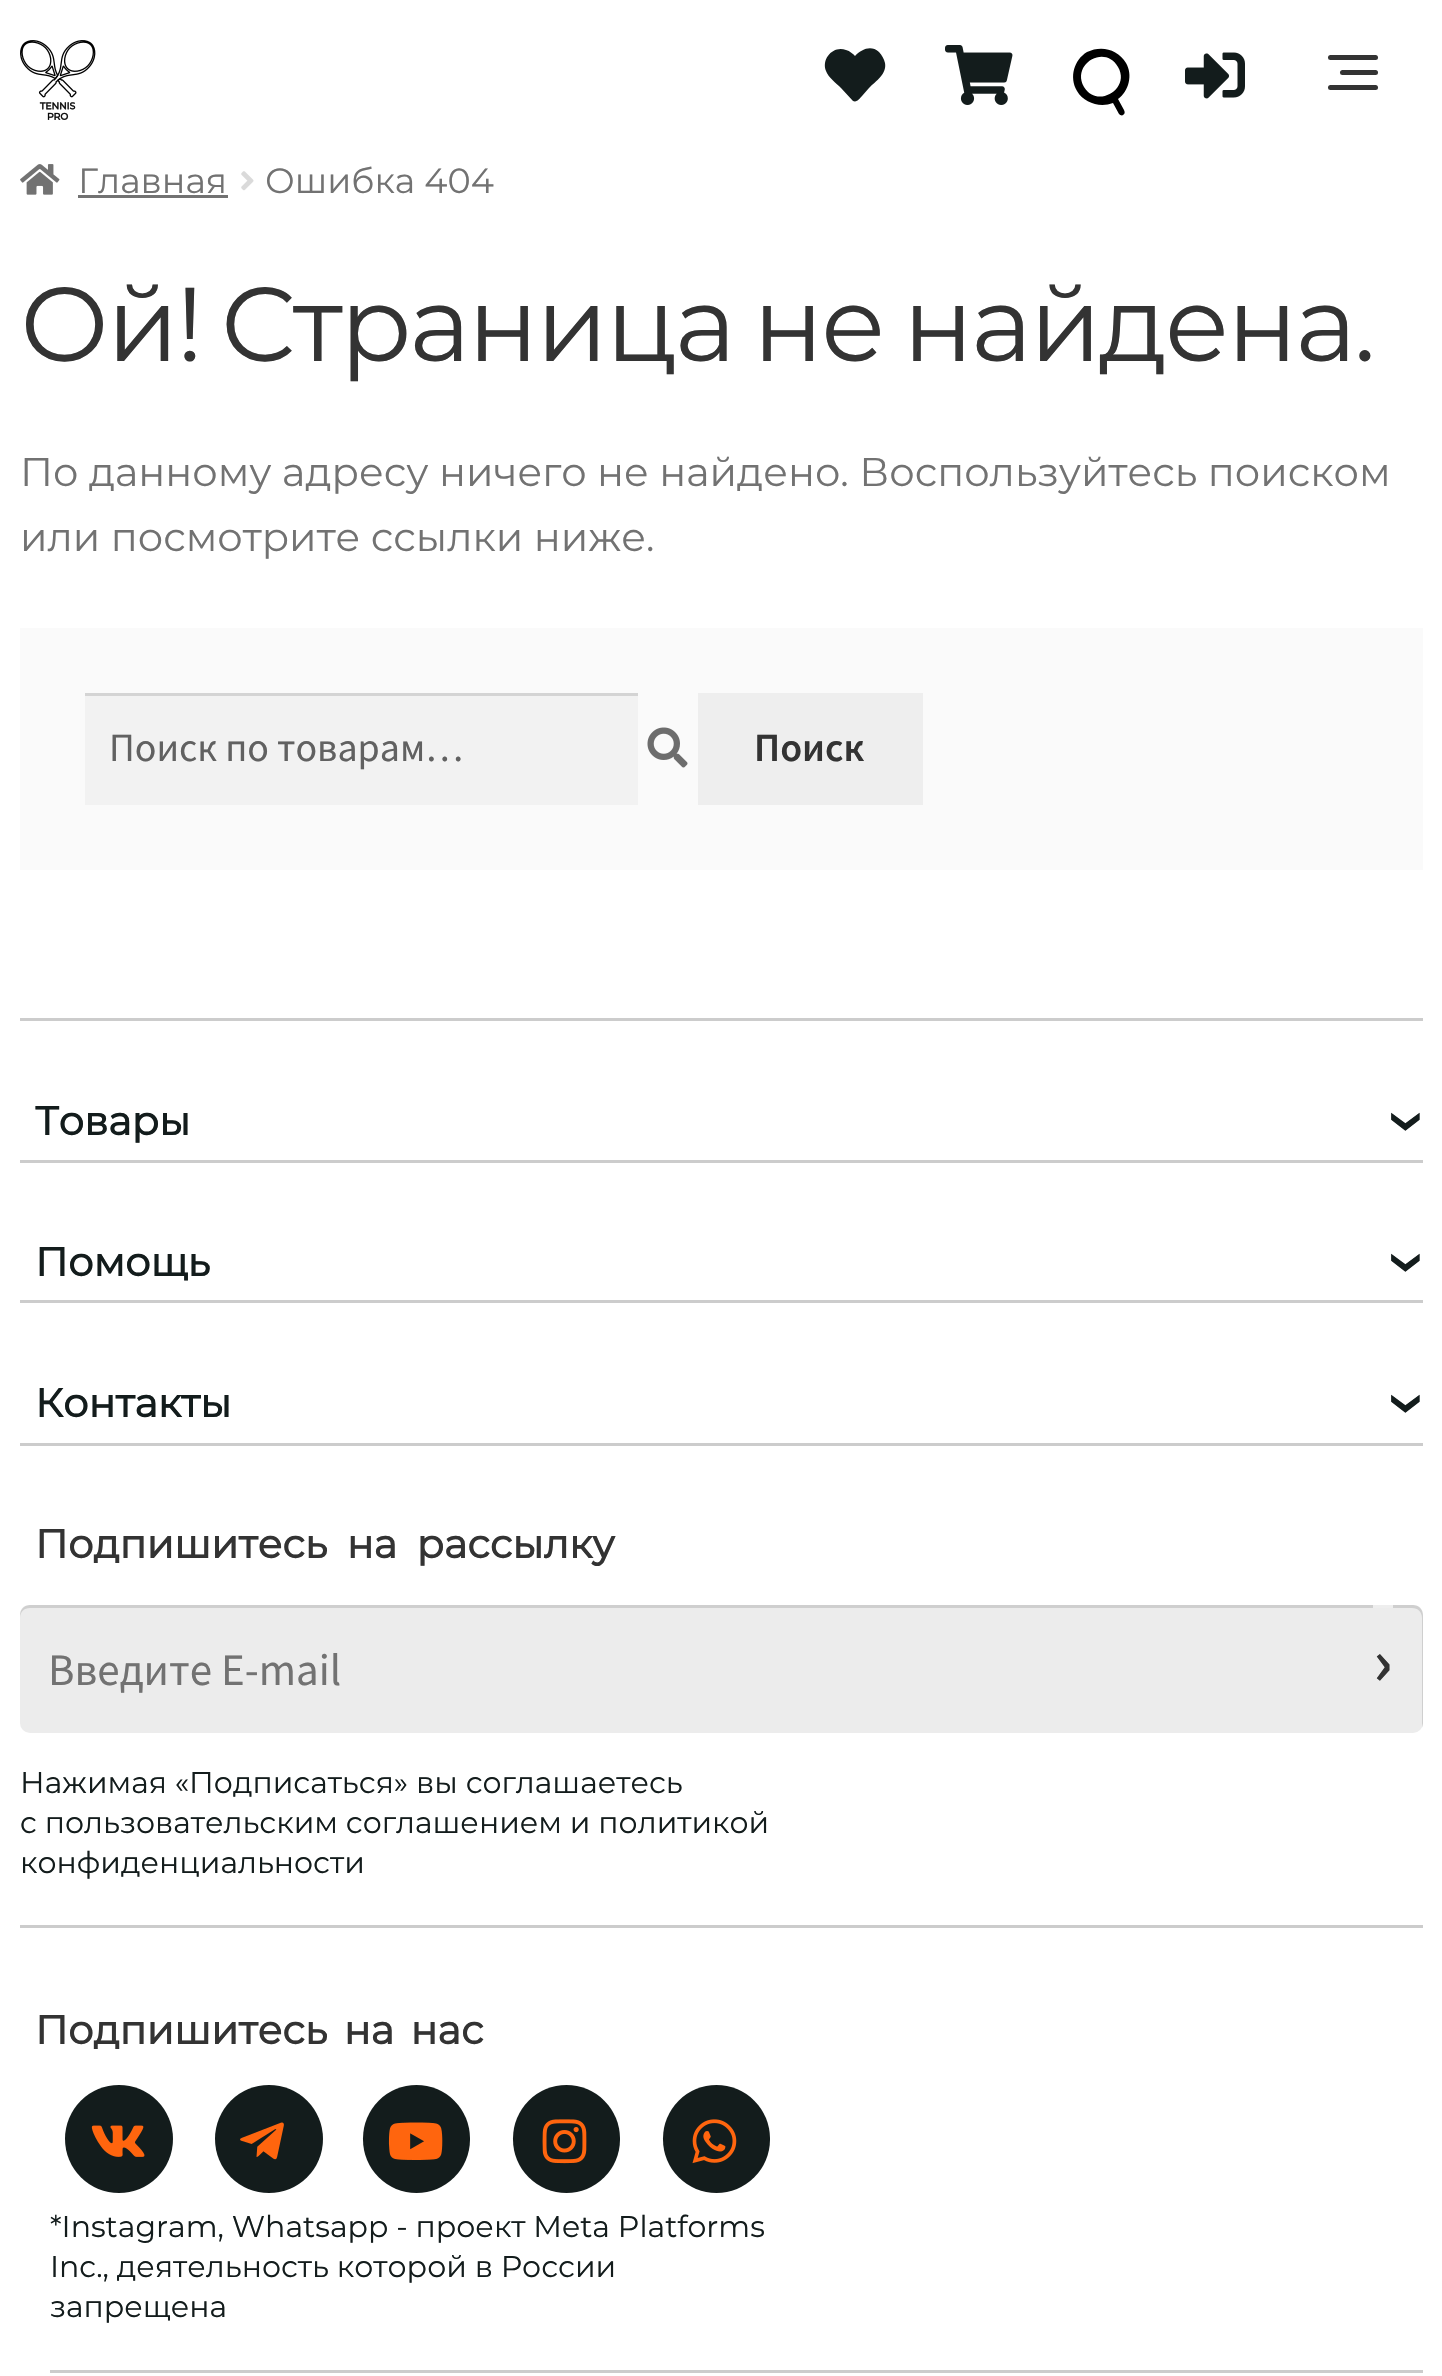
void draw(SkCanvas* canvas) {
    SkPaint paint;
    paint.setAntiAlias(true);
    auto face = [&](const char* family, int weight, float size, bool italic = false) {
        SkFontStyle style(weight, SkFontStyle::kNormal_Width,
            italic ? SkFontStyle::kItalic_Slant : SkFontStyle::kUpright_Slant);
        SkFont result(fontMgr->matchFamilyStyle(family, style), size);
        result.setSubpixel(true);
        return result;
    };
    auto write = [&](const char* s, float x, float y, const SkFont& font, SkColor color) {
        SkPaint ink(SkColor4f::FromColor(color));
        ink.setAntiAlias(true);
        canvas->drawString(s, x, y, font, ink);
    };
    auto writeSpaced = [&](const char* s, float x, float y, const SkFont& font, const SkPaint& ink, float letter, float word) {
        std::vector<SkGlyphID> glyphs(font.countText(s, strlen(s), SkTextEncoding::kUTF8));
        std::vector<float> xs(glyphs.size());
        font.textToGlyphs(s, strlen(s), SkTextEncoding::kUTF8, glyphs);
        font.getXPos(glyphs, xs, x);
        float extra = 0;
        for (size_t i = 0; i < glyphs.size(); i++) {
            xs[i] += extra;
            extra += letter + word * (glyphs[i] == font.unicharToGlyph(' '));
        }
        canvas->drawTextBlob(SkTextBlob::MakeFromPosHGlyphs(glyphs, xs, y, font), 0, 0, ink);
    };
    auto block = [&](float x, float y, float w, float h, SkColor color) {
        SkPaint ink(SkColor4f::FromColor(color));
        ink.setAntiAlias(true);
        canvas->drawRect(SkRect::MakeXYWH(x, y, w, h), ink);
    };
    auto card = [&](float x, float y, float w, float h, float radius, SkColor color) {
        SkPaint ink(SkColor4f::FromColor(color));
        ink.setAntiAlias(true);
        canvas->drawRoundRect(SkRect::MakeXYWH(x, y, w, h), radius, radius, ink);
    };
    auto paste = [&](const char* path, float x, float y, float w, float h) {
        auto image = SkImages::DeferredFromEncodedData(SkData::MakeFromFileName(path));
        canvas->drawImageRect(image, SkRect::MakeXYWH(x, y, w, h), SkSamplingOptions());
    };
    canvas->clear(SK_ColorWHITE);
    paste("pic1.png", 20, 40, 76, 80);
    paint.setColor(SkColorSetRGB(19, 28, 28));
    canvas->drawPath(SkPathBuilder().moveTo(879, 52).cubicTo(882, 55, 884, 59, 885, 63).cubicTo(887, 74, 876, 81, 869, 88).lineTo(862, 96).cubicTo(860, 98, 857, 103, 853, 101).lineTo(841, 88).cubicTo(837, 84, 828, 77, 826, 71).cubicTo(821, 58, 834, 45, 846, 50).cubicTo(850, 51, 853, 54, 855, 56).cubicTo(862, 49, 871, 45, 879, 52).close().detach(), paint);
    paste("pic2.png", 945, 45, 68, 60);
    paint.setColor(SK_ColorBLACK);
    canvas->drawPath(SkPathBuilder(SkPathFillType::kEvenOdd).moveTo(1118, 99).cubicTo(1129, 91, 1133, 75, 1126, 63).cubicTo(1118, 49, 1101, 45, 1087, 52).cubicTo(1074, 60, 1069, 77, 1077, 91).cubicTo(1084, 103, 1100, 108, 1113, 103).lineTo(1119, 114).cubicTo(1120, 115, 1122, 116, 1123, 115).cubicTo(1125, 114, 1125, 112, 1124, 110).close().moveTo(1084, 87).cubicTo(1071, 64, 1105, 44, 1118, 67).cubicTo(1131, 89, 1097, 109, 1084, 87).close().detach(), paint);
    paste("pic3.png", 1185, 52, 60, 47);
    card(1328, 55, 50, 5, 2.5f, SkColorSetRGB(51, 51, 51));
    card(1340, 70, 38, 5, 2.5f, SkColorSetRGB(51, 51, 51));
    card(1328, 85, 50, 5, 2.5f, SkColorSetRGB(51, 51, 51));
    paste("pic4.png", 20, 164, 40, 31);
    auto kFont1 = face("Montserrat", 400, 35);
    write("Главная", 78, 193, kFont1, SkColorSetRGB(114, 114, 114));
    block(78, 195, 150, 3, SkColorSetRGB(114, 114, 114));
    paste("pic5.png", 241, 171, 13, 20);
    write("Ошибка 404", 265, 193, kFont1, SkColorSetRGB(114, 114, 114));
    auto kFont2 = face("Montserrat", 400, 104.75f);
    paint.setColor(SkColorSetRGB(51, 51, 51));
    writeSpaced("Ой! Страница не найдена.", 20, 361, kFont2, paint, -2.5f, -5.5f);
    auto kFont3 = face("Montserrat", 400, 40);
    write("По данному адресу ничего не найдено. Воспользуйтесь поиском", 20, 486, kFont3, SkColorSetRGB(114, 114, 114));
    write("или посмотрите ссылки ниже.", 20, 551, kFont3, SkColorSetRGB(114, 114, 114));
    block(20, 628, 1403, 242, SkColorSetRGB(250, 250, 250));
    block(85, 696, 553, 109, SkColorSetRGB(242, 242, 242));
    block(85, 693, 553, 3, SkColorSetRGB(212, 212, 212));
    auto kFont4 = face("Source Sans Pro", 400, 40);
    write("Поиск по товарам…", 109, 761, kFont4, SkColorSetRGB(97, 97, 97));
    paste("pic6.png", 647, 727, 41, 41);
    block(698, 693, 225, 112, SkColorSetRGB(238, 238, 238));
    auto kFont5 = face("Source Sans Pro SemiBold", 600, 40);
    write("Поиск", 754, 761, kFont5, SkColorSetRGB(51, 51, 51));
    block(20, 1018, 1403, 3, SkColorSetRGB(204, 204, 204));
    auto kFont6 = face("Montserrat", 700, 40);
    write("Товары", 35, 1135, kFont6, SkColorSetRGB(19, 28, 28));
    auto kFont7 = face("Montserrat", 700, 70);
    canvas->save();
    canvas->rotate(90, 1386, 1111);
    write("›", 1386, 1111, kFont7, SkColorSetRGB(19, 28, 28));
    canvas->restore();
    block(20, 1160, 1403, 3, SkColorSetRGB(204, 204, 204));
    write("Помощь", 35, 1276, kFont6, SkColorSetRGB(19, 28, 28));
    canvas->save();
    canvas->rotate(90, 1386, 1252);
    write("›", 1386, 1252, kFont7, SkColorSetRGB(19, 28, 28));
    canvas->restore();
    block(20, 1300, 1403, 3, SkColorSetRGB(204, 204, 204));
    write("Контакты", 35, 1417, kFont6, SkColorSetRGB(19, 28, 28));
    canvas->save();
    canvas->rotate(90, 1386, 1393);
    write("›", 1386, 1393, kFont7, SkColorSetRGB(19, 28, 28));
    canvas->restore();
    block(20, 1443, 1403, 3, SkColorSetRGB(204, 204, 204));
    writeSpaced("Подпишитесь на рассылку", 35, 1558, kFont6, paint, 0, 9);
    card(20, 1605, 1403, 128, 10, SkColorSetRGB(236, 236, 236));
    paint.setColor(SkColorSetARGB(31, 0, 0, 0));
    canvas->drawPath(SkPathBuilder().moveTo(30, 1608).lineTo(1412, 1608).cubicTo(1418, 1608, 1422, 1612, 1422, 1618).lineTo(1422, 1725).lineTo(1422, 1728).cubicTo(1422, 1727, 1423, 1725, 1423, 1723).lineTo(1423, 1615).cubicTo(1423, 1609, 1419, 1605, 1413, 1605).lineTo(30, 1605).cubicTo(24, 1605, 20, 1609, 20, 1615).lineTo(20, 1618).cubicTo(20, 1612, 24, 1608, 30, 1608).close().detach(), paint);
    auto kFont8 = face("Source Sans Pro", 400, 45);
    write("Введите E-mail", 48, 1685, kFont8, SkColorSetRGB(114, 114, 114));
    block(1373, 1605, 20, 3, SkColorSetRGB(238, 238, 238));
    auto kFont9 = face("Source Sans Pro SemiBold", 600, 70);
    write("›", 1373, 1685, kFont9, SkColorSetRGB(51, 51, 51));
    auto kFont10 = face("Montserrat", 400, 30);
    write("Нажимая «Подписаться» вы соглашаетесь", 20, 1793, kFont10, SkColorSetRGB(19, 28, 28));
    write("c пользовательским соглашением и политикой", 20, 1833, kFont10, SkColorSetRGB(19, 28, 28));
    write("конфиденциальности", 20, 1873, kFont10, SkColorSetRGB(19, 28, 28));
    block(20, 1925, 1403, 3, SkColorSetRGB(204, 204, 204));
    paint.setColor(SkColorSetRGB(51, 51, 51));
    writeSpaced("Подпишитесь на нас", 35, 2044, kFont6, paint, 0, 6);
    paint.setColor(SkColorSetRGB(19, 28, 28));
    canvas->drawCircle(119, 2139, 54, paint);
    paste("pic7.png", 91, 2125, 54, 32);
    canvas->drawCircle(269, 2139, 54, paint);
    paste("pic8.png", 240, 2122, 44, 38);
    card(363, 2085, 107, 108, 53.5f, SkColorSetRGB(19, 28, 28));
    paste("pic9.png", 388, 2122, 55, 38);
    card(513, 2085, 107, 108, 53.5f, SkColorSetRGB(19, 28, 28));
    paste("pic10.png", 542, 2119, 45, 45);
    card(663, 2085, 107, 108, 53.5f, SkColorSetRGB(19, 28, 28));
    paste("pic11.png", 692, 2119, 45, 45);
    write("*Instagram, Whatsapp - проект Meta Platforms", 50, 2237, kFont10, SkColorSetRGB(19, 28, 28));
    write("Inc., деятельность которой в России", 50, 2277, kFont10, SkColorSetRGB(19, 28, 28));
    write("запрещена", 50, 2317, kFont10, SkColorSetRGB(19, 28, 28));
    block(50, 2370, 1373, 3, SkColorSetRGB(204, 204, 204));
}
